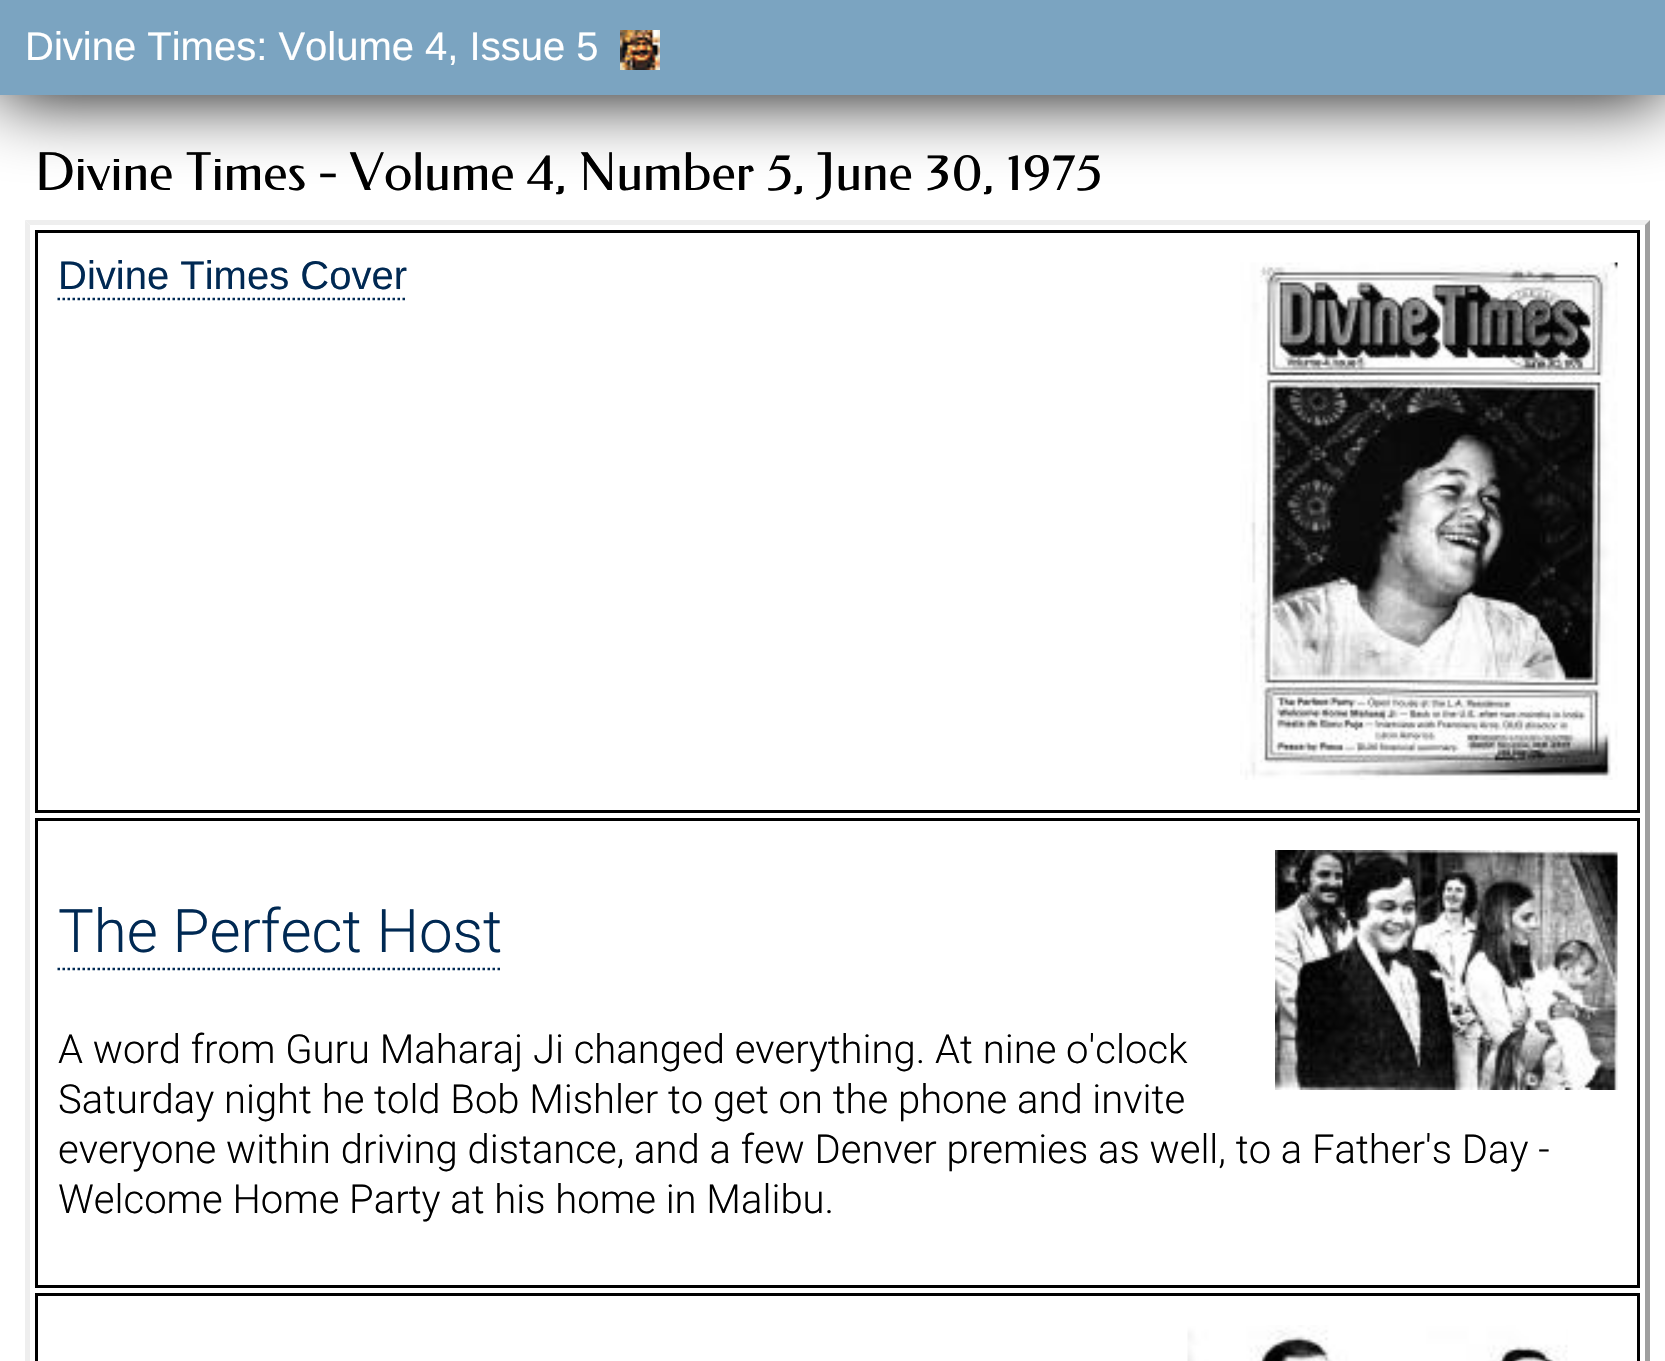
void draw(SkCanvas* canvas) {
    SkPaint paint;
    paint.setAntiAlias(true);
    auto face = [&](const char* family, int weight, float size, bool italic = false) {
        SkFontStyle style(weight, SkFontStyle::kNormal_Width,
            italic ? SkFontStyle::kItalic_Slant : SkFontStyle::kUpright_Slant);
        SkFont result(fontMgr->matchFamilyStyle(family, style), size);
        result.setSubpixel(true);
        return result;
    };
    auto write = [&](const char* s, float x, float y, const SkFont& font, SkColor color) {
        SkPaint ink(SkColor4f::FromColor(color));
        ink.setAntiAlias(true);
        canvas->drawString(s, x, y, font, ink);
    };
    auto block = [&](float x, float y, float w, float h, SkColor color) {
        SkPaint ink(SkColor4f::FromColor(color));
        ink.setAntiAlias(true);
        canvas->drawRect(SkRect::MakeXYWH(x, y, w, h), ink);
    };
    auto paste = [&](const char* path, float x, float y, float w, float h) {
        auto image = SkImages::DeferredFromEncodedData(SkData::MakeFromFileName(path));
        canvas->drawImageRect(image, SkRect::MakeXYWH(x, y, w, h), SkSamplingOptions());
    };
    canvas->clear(SK_ColorWHITE);
    paint.setColor(SK_ColorBLACK);
    paint.setMaskFilter(SkMaskFilter::MakeBlur(kNormal_SkBlurStyle, 37.5f));
    canvas->drawRect(SkRect::MakeXYWH(0, 0, 1665, 95), paint);
    paint.setMaskFilter(nullptr);
    block(0, 0, 1665, 95, SkColorSetRGB(123, 164, 193));
    auto kFont1 = face("Liberation Sans", 400, 40);
    write("Divine Times: Volume 4, Issue 5", 25, 60, kFont1, SK_ColorWHITE);
    paste("pic1.png", 620, 30, 40, 40);
    auto kFont2 = face("Federo", 400, 52);
    write("Divine Times - Volume 4, Number 5, June 30, 1975", 35, 190, kFont2, SK_ColorBLACK);
    paint.setColor(SkColorSetRGB(238, 238, 238));
    canvas->drawPath(SkPathBuilder().moveTo(25, 220).lineTo(1650, 220).lineTo(1645, 225).lineTo(30, 225).close().detach(), paint);
    paint.setColor(SkColorSetRGB(159, 159, 159));
    canvas->drawPath(SkPathBuilder().moveTo(1650, 220).lineTo(1650, 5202).lineTo(1645, 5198).lineTo(1645, 225).close().detach(), paint);
    paint.setColor(SkColorSetRGB(238, 238, 238));
    canvas->drawPath(SkPathBuilder().moveTo(25, 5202).lineTo(25, 220).lineTo(30, 225).lineTo(30, 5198).close().detach(), paint);
    paint.setStyle(SkPaint::kStroke_Style);
    paint.setStrokeWidth(3);
    paint.setColor(SK_ColorBLACK);
    canvas->drawRect(SkRect::MakeXYWH(36.5f, 231.5f, 1602, 580), paint);
    write("Divine Times Cover", 58, 289, kFont1, SkColorSetRGB(0, 41, 83));
    paint.setStrokeWidth(2.5f);
    paint.setColor(SkColorSetRGB(0, 41, 83));
    paint.setPathEffect(SkDashPathEffect::Make({{2.5f, 2.5f}}, 0));
    canvas->drawPath(SkPathBuilder().moveTo(57.5f, 299).lineTo(407.5f, 299).detach(), paint);
    paint.setPathEffect(nullptr);
    paste("pic2.png", 1240, 262, 378, 518);
    paint.setStrokeWidth(3);
    paint.setColor(SK_ColorBLACK);
    canvas->drawRect(SkRect::MakeXYWH(36.5f, 819.5f, 1602, 467), paint);
    auto kFont3 = face("Roboto", 300, 60);
    write("The Perfect Host", 58, 952, kFont3, SkColorSetRGB(0, 41, 83));
    paint.setStrokeWidth(2.5f);
    paint.setColor(SkColorSetRGB(0, 41, 83));
    paint.setPathEffect(SkDashPathEffect::Make({{2.5f, 2.5f}}, 0));
    canvas->drawPath(SkPathBuilder().moveTo(57.5f, 969).lineTo(502.5f, 969).detach(), paint);
    paint.setPathEffect(nullptr);
    paste("pic3.png", 1275, 850, 343, 240);
    auto kFont4 = face("Roboto", 300, 40);
    write("A word from Guru Maharaj Ji changed everything. At nine o'clock", 58, 1063, kFont4, SK_ColorBLACK);
    write("Saturday night he told Bob Mishler to get on the phone and invite", 58, 1113, kFont4, SK_ColorBLACK);
    write("everyone within driving distance, and a few Denver premies as well, to a Father's Day -", 58, 1163, kFont4, SK_ColorBLACK);
    write("Welcome Home Party at his home in Malibu.", 58, 1213, kFont4, SK_ColorBLACK);
    paint.setStrokeWidth(3);
    paint.setColor(SK_ColorBLACK);
    canvas->drawRect(SkRect::MakeXYWH(36.5f, 1294.5f, 1602, 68), paint);
    paste("pic4.png", 1187, 1325, 381, 36);
}
